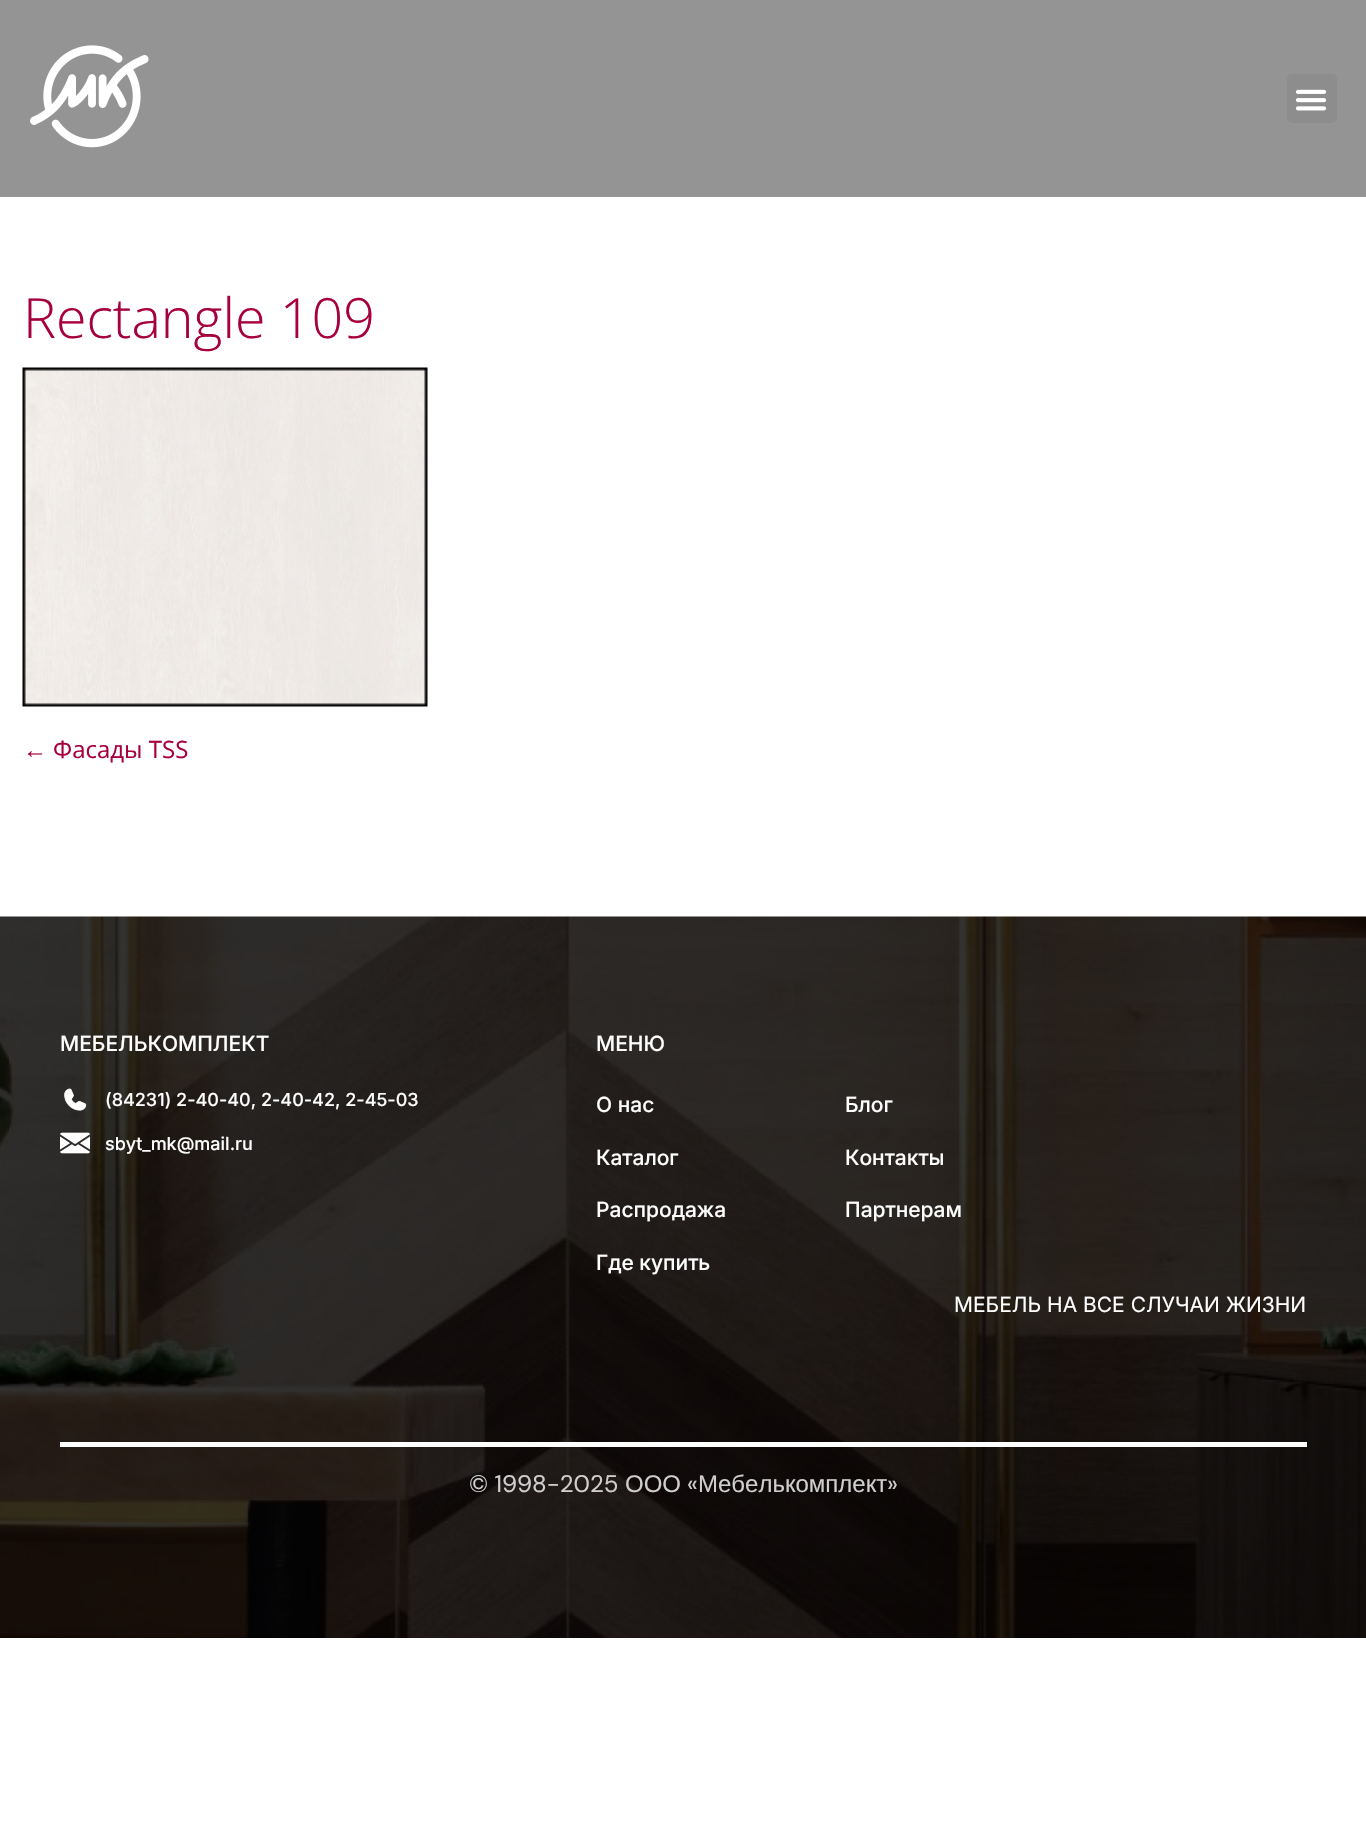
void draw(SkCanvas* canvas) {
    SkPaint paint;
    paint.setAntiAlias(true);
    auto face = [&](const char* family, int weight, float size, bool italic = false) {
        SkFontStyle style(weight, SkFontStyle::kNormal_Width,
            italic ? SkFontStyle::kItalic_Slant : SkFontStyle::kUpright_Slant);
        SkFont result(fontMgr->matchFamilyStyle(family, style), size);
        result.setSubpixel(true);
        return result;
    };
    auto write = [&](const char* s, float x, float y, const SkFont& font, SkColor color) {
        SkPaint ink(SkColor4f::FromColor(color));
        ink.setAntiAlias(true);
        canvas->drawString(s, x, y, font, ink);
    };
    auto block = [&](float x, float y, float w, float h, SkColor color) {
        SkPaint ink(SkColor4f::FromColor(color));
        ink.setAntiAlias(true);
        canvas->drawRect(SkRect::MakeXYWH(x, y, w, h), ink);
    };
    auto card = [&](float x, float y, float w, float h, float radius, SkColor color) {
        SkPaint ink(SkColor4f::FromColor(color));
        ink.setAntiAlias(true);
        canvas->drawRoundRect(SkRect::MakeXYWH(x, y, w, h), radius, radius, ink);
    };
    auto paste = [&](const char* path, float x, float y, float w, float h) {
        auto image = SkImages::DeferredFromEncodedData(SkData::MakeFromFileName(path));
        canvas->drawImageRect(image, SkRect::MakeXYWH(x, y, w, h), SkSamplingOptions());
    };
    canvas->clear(SK_ColorWHITE);
    block(0, 0, 1366, 197, SkColorSetRGB(148, 148, 148));
    paste("pic1.png", 30, 45, 119, 103);
    card(1287, 74, 50, 49, 5, SkColorSetRGB(141, 141, 141));
    paste("pic2.png", 1295, 89, 32, 22);
    auto kFont1 = face("Open Sans", 300, 55.5f);
    write("Rectangle 109", 23, 338, kFont1, SkColorSetRGB(167, 0, 63));
    paste("pic3.png", 22, 367, 406, 340);
    auto kFont2 = face("Liberation Sans", 400, 24);
    write("←", 23, 758, kFont2, SkColorSetRGB(167, 0, 63));
    auto kFont3 = face("Open Sans", 400, 24);
    write("Фасады TSS", 53, 758, kFont3, SkColorSetRGB(167, 0, 63));
    paste("pic4.png", 0, 916, 1366, 722);
    auto kFont4 = face("Inter", 500, 21);
    write("МЕБЕЛЬКОМПЛЕКТ", 60, 1051, kFont4, SK_ColorWHITE);
    paste("pic5.png", 64, 1088, 23, 23);
    auto kFont5 = face("Inter", 500, 18);
    write("(84231) 2-40-40, 2-40-42, 2-45-03", 105, 1106, kFont5, SK_ColorWHITE);
    paste("pic6.png", 60, 1132, 30, 22);
    write("sbyt_mk@mail.ru", 105, 1150, kFont5, SK_ColorWHITE);
    write("МЕНЮ", 596, 1051, kFont4, SK_ColorWHITE);
    write("О нас", 596, 1112, kFont4, SK_ColorWHITE);
    write("Каталог", 596, 1165, kFont4, SK_ColorWHITE);
    write("Распродажа", 596, 1217, kFont4, SK_ColorWHITE);
    write("Где купить", 596, 1270, kFont4, SK_ColorWHITE);
    write("Блог", 845, 1112, kFont4, SK_ColorWHITE);
    write("Контакты", 845, 1165, kFont4, SK_ColorWHITE);
    write("Партнерам", 845, 1217, kFont4, SK_ColorWHITE);
    auto kFont6 = face("Inter", 400, 21);
    write("МЕБЕЛЬ НА ВСЕ СЛУЧАИ ЖИЗНИ", 954, 1312, kFont6, SK_ColorWHITE);
    block(60, 1442, 1247, 5, SK_ColorWHITE);
    auto kFont7 = face("DM Sans", 400, 24);
    write("© 1998-2025", 469, 1492, kFont7, SkColorSetRGB(207, 206, 206));
    write("ООО", 625, 1492, kFont2, SkColorSetRGB(207, 206, 206));
    write("«", 687, 1492, kFont7, SkColorSetRGB(207, 206, 206));
    write("Мебелькомплект", 698, 1492, kFont2, SkColorSetRGB(207, 206, 206));
    write("»", 887, 1492, kFont7, SkColorSetRGB(207, 206, 206));
}
